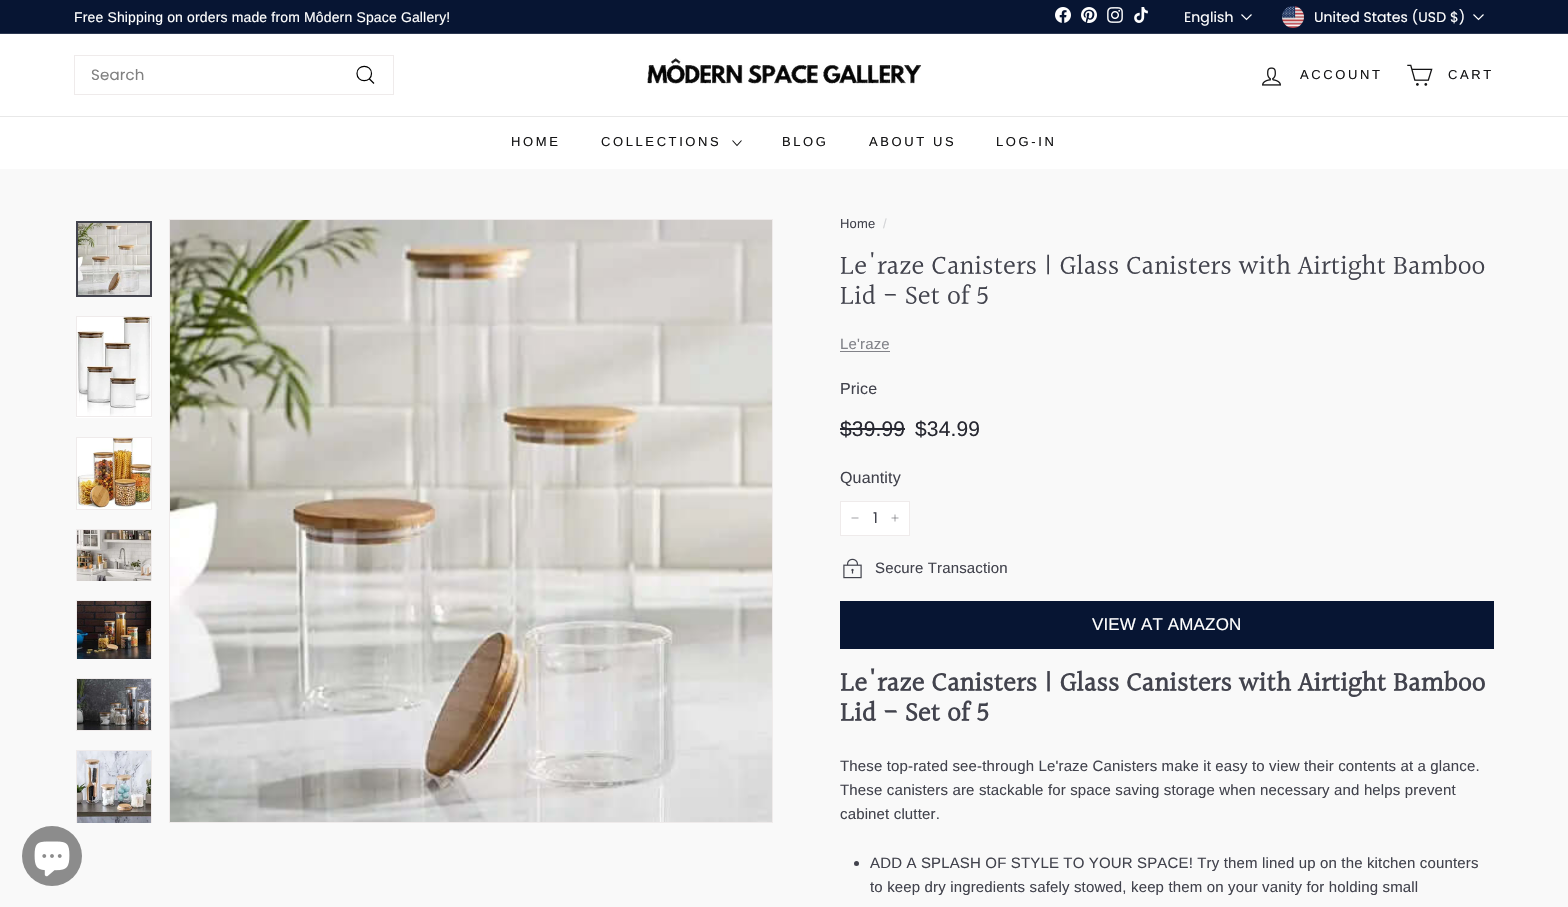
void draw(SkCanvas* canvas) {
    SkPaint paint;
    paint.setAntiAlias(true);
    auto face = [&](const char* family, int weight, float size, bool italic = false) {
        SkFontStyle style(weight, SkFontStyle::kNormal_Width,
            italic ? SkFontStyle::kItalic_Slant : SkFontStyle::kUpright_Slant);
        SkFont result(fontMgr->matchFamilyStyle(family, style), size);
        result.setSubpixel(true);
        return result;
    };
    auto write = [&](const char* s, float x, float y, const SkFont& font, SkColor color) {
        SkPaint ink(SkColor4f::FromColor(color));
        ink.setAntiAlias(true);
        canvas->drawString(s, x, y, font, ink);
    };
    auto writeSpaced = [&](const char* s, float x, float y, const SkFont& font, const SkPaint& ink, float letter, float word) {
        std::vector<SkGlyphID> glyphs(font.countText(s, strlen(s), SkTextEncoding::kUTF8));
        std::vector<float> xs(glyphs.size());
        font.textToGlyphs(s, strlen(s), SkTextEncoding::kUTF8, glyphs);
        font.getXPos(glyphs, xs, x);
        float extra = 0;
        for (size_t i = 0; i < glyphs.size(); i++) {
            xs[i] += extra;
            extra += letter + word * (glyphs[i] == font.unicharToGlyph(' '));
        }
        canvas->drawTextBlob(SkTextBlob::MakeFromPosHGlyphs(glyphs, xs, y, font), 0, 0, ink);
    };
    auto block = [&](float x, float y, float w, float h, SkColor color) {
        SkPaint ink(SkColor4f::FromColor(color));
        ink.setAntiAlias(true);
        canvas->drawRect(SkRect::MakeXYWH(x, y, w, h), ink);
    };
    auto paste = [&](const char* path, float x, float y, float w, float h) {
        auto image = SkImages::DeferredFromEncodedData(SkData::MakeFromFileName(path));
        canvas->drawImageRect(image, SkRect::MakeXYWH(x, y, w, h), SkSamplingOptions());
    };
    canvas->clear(SkColorSetRGB(249, 249, 249));
    paint.setColor(SkColorSetRGB(140, 140, 140));
    canvas->drawCircle(52, 856, 30, paint);
    paste("pic1.png", 34, 841, 36, 36);
    block(0, 0, 1568, 33, SkColorSetRGB(7, 21, 51));
    auto kFont1 = face("Liberation Sans", 400, 14);
    paint.setColor(SK_ColorWHITE);
    writeSpaced("Free Shipping on orders made from Môdern Space Gallery!", 74, 22, kFont1, paint, 0.15f, 0);
    paste("pic2.png", 1055, 7, 16, 16);
    paste("pic3.png", 1081, 7, 16, 16);
    paste("pic4.png", 1107, 7, 16, 16);
    paste("pic5.png", 1134, 7, 14, 16);
    auto kFont2 = face("Poppins", 400, 14);
    writeSpaced("English", 1184, 22, kFont2, paint, 0.1f, 0);
    paint.setStyle(SkPaint::kStroke_Style);
    paint.setStrokeWidth(1.2f);
    canvas->drawPath(SkPathBuilder().moveTo(1241.5f, 14.5f).lineTo(1246.5f, 19.5f).lineTo(1251.5f, 14.5f).detach(), paint);
    paste("pic6.png", 1282, 6, 22, 22);
    paint.setStyle(SkPaint::kFill_Style);
    writeSpaced("United States (USD $)", 1314, 22, kFont2, paint, 0.1f, 0);
    paint.setStyle(SkPaint::kStroke_Style);
    canvas->drawPath(SkPathBuilder().moveTo(1473.5f, 14.5f).lineTo(1478.5f, 19.5f).lineTo(1483.5f, 14.5f).detach(), paint);
    block(0, 33, 1568, 1, SkColorSetRGB(44, 56, 82));
    block(0, 34, 1568, 82, SK_ColorWHITE);
    paint.setStrokeWidth(1);
    paint.setColor(SkColorSetRGB(239, 235, 235));
    canvas->drawRect(SkRect::MakeXYWH(74.5f, 55.5f, 319, 39), paint);
    auto kFont3 = face("Poppins", 400, 15);
    paint.setStyle(SkPaint::kFill_Style);
    paint.setColor(SkColorSetRGB(128, 128, 128));
    writeSpaced("Search", 91, 80, kFont3, paint, 0.15f, 0);
    paint.setStyle(SkPaint::kStroke_Style);
    paint.setStrokeWidth(1.2f);
    paint.setColor(SK_ColorBLACK);
    canvas->drawPath(SkPathBuilder().moveTo(371.5f, 73.5f).cubicTo(371.5f, 83, 357, 83, 357, 73.5f).cubicTo(357, 64, 371.5f, 64, 371.5f, 73.5f).close().moveTo(374, 83.5f).lineTo(369.5f, 79).detach(), paint);
    paste("pic7.png", 647, 58, 275, 26);
    paste("pic8.png", 1262, 67, 19, 19);
    auto kFont4 = face("Liberation Sans", 400, 13);
    paint.setStyle(SkPaint::kFill_Style);
    paint.setColor(SkColorSetRGB(20, 20, 21));
    writeSpaced("ACCOUNT", 1300, 79, kFont4, paint, 2.6f, 0);
    paste("pic9.png", 1407, 64, 26, 22);
    writeSpaced("CART", 1448, 79, kFont4, paint, 2.6f, 0);
    block(0, 116, 1568, 1, SkColorSetRGB(232, 232, 232));
    block(0, 117, 1568, 52, SK_ColorWHITE);
    writeSpaced("HOME", 511, 146, kFont4, paint, 2.6f, 0);
    writeSpaced("COLLECTIONS", 601, 146, kFont4, paint, 2.6f, 0);
    paint.setStyle(SkPaint::kStroke_Style);
    paint.setStrokeWidth(1.1f);
    canvas->drawPath(SkPathBuilder().moveTo(732.5f, 140.5f).lineTo(737, 145.5f).lineTo(741.5f, 140.5f).detach(), paint);
    paint.setStyle(SkPaint::kFill_Style);
    writeSpaced("BLOG", 782, 146, kFont4, paint, 2.6f, 0);
    writeSpaced("ABOUT US", 869, 146, kFont4, paint, 2.6f, 0);
    writeSpaced("LOG-IN", 996, 146, kFont4, paint, 2.6f, 0);
    paste("pic10.png", 78, 223, 72, 72);
    paint.setStyle(SkPaint::kStroke_Style);
    paint.setStrokeWidth(2);
    paint.setColor(SkColorSetRGB(66, 67, 77));
    canvas->drawRect(SkRect::MakeXYWH(77, 222, 74, 74), paint);
    block(76, 417, 76, 1, SK_ColorWHITE);
    paint.setStrokeWidth(1);
    paint.setColor(SkColorSetRGB(239, 235, 235));
    canvas->drawRect(SkRect::MakeXYWH(76.5f, 316.5f, 75, 100), paint);
    paste("pic11.png", 77, 317, 74, 99);
    block(77, 508, 74, 1, SK_ColorWHITE);
    canvas->drawRect(SkRect::MakeXYWH(76.5f, 437.5f, 75, 72), paint);
    paste("pic12.png", 77, 438, 74, 70);
    canvas->save();
    canvas->clipRect(SkRect::MakeXYWH(76, 529, 76, 52));
    canvas->drawRect(SkRect::MakeXYWH(76.5f, 529.5f, 75, 52), paint);
    canvas->restore();
    paste("pic13.png", 77, 530, 74, 51);
    canvas->save();
    canvas->clipRect(SkRect::MakeXYWH(76, 600, 76, 59));
    canvas->drawRect(SkRect::MakeXYWH(76.5f, 600.5f, 75, 59), paint);
    canvas->restore();
    paste("pic14.png", 77, 601, 74, 58);
    canvas->drawRect(SkRect::MakeXYWH(76.5f, 678.5f, 75, 52), paint);
    paste("pic15.png", 77, 679, 74, 51);
    canvas->save();
    canvas->clipRect(SkRect::MakeXYWH(76, 750, 76, 73));
    canvas->drawRect(SkRect::MakeXYWH(76.5f, 750.5f, 75, 75), paint);
    canvas->restore();
    paste("pic16.png", 77, 751, 74, 72);
    canvas->drawRect(SkRect::MakeXYWH(169.5f, 219.5f, 603, 603), paint);
    paste("pic17.png", 170, 220, 602, 602);
    paint.setStyle(SkPaint::kFill_Style);
    paint.setColor(SkColorSetRGB(66, 67, 77));
    writeSpaced("Home", 840, 228, kFont4, paint, 0.15f, 0);
    paint.setColor(SkColorSetRGB(212, 213, 215));
    writeSpaced("/", 883, 228, kFont4, paint, 0.15f, 0);
    auto kFont5 = face("Halant", 400, 27.2f);
    write("Le'raze Canisters | Glass Canisters with Airtight Bamboo", 840, 275, kFont5, SkColorSetRGB(66, 67, 77));
    write("Lid - Set of 5", 840, 305, kFont5, SkColorSetRGB(66, 67, 77));
    auto kFont6 = face("Liberation Sans", 400, 15);
    paint.setColor(SkColorSetRGB(130, 131, 137));
    writeSpaced("Le'raze", 840, 349, kFont6, paint, 0.15f, 0);
    block(840, 351, 50, 1, SkColorSetRGB(130, 131, 137));
    auto kFont7 = face("Liberation Sans", 400, 16);
    paint.setColor(SkColorSetRGB(66, 67, 77));
    writeSpaced("Price", 840, 394, kFont7, paint, 0.15f, 0);
    auto kFont8 = face("Liberation Sans", 400, 21);
    paint.setColor(SkColorSetRGB(39, 40, 49));
    writeSpaced("$39.99", 840, 436, kFont8, paint, 0.15f, 0);
    block(840, 428, 65, 2, SkColorSetRGB(39, 40, 49));
    writeSpaced("$34.99", 915, 436, kFont8, paint, 0.15f, 0);
    paint.setColor(SkColorSetRGB(66, 67, 77));
    writeSpaced("Quantity", 840, 483, kFont7, paint, 0.15f, 0);
    paint.setColor(SK_ColorWHITE);
    canvas->drawRect(SkRect::MakeXYWH(840.5f, 501.5f, 69, 34), paint);
    paint.setStyle(SkPaint::kStroke_Style);
    paint.setColor(SkColorSetRGB(239, 235, 235));
    canvas->drawRect(SkRect::MakeXYWH(840.5f, 501.5f, 69, 34), paint);
    paint.setStyle(SkPaint::kFill_Style);
    paint.setColor(SkColorSetRGB(66, 67, 77));
    writeSpaced("1", 873, 523, kFont3, paint, 0.15f, 0);
    paint.setStyle(SkPaint::kStroke_Style);
    paint.setStrokeWidth(0.5f);
    canvas->drawPath(SkPathBuilder().moveTo(858.5f, 518).lineTo(851.5f, 518).moveTo(895, 514.5f).lineTo(895, 521.5f).moveTo(898.5f, 518).lineTo(891.5f, 518).detach(), paint);
    paste("pic18.png", 843, 558, 19, 21);
    paint.setStyle(SkPaint::kFill_Style);
    writeSpaced("Secure Transaction", 875, 573, kFont6, paint, 0.15f, 0);
    block(840, 601, 654, 48, SkColorSetRGB(7, 21, 51));
    auto kFont9 = face("Liberation Sans", 400, 17);
    paint.setColor(SK_ColorWHITE);
    writeSpaced("VIEW AT AMAZON", 1092, 630, kFont9, paint, 0.15f, 0);
    auto kFont10 = face("Halant", 700, 27.2f);
    write("Le'raze Canisters | Glass Canisters with Airtight Bamboo", 840, 692, kFont10, SkColorSetRGB(66, 67, 77));
    write("Lid - Set of 5", 840, 722, kFont10, SkColorSetRGB(66, 67, 77));
    paint.setColor(SkColorSetRGB(66, 67, 77));
    writeSpaced("These top-rated see-through Le'raze Canisters make it easy to view their contents at a glance.", 840, 771, kFont6, paint, 0.15f, 0);
    writeSpaced("These canisters are stackable for space saving storage when necessary and helps prevent", 840, 795, kFont6, paint, 0.15f, 0);
    writeSpaced("cabinet clutter.", 840, 819, kFont6, paint, 0.15f, 0);
    canvas->drawCircle(856.5f, 863.5f, 2.5f, paint);
    writeSpaced("ADD A SPLASH OF STYLE TO YOUR SPACE! Try them lined up on the kitchen counters", 870, 868, kFont6, paint, 0.15f, 0);
    writeSpaced("to keep dry ingredients safely stowed, keep them on your vanity for holding small", 870, 892, kFont6, paint, 0.15f, 0);
}
